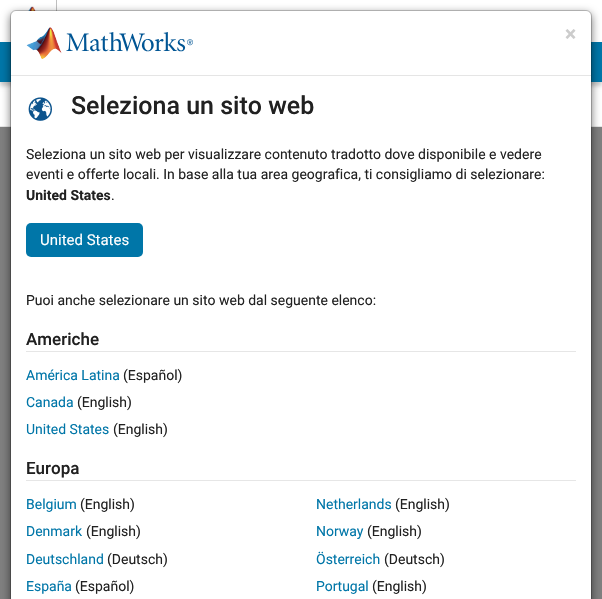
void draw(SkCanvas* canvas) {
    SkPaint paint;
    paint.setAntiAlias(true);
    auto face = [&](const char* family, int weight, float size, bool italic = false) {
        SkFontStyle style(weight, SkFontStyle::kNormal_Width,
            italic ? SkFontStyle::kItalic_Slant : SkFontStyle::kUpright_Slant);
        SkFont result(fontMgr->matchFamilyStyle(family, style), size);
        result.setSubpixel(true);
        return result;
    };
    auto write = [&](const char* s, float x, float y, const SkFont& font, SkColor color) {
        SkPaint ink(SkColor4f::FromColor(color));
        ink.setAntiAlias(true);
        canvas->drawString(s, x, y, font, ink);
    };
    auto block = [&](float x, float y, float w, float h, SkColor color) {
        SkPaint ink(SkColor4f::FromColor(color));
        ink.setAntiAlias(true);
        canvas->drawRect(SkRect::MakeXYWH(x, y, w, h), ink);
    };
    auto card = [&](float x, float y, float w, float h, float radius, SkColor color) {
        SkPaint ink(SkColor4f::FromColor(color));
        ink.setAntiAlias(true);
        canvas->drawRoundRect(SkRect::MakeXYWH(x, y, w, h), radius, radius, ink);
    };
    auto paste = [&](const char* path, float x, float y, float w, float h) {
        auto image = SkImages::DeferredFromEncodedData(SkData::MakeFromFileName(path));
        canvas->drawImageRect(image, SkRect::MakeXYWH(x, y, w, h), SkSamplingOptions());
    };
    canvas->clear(SkColorSetRGB(128, 128, 128));
    block(0, 0, 602, 42, SK_ColorWHITE);
    block(56, 0, 1, 11, SkColorSetRGB(191, 191, 191));
    paste("pic1.png", 28, 6, 8, 5);
    block(0, 82, 602, 44, SK_ColorWHITE);
    paint.setColor(SkColorSetARGB(51, 0, 0, 0));
    paint.setMaskFilter(SkMaskFilter::MakeBlur(kNormal_SkBlurStyle, 2));
    canvas->drawRect(SkRect::MakeXYWH(0, 46, 602, 40), paint);
    paint.setMaskFilter(nullptr);
    block(0, 42, 11, 40, SkColorSetRGB(0, 118, 168));
    block(591, 42, 11, 40, SkColorSetRGB(0, 118, 168));
    block(0, 126, 602, 1, SkColorSetRGB(230, 230, 230));
    paint.setColor(SkColorSetARGB(128, 0, 0, 0));
    paint.setMaskFilter(SkMaskFilter::MakeBlur(kNormal_SkBlurStyle, 4.5f));
    canvas->drawRoundRect(SkRect::MakeXYWH(10, 13, 582, 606), 6, 6, paint);
    paint.setMaskFilter(nullptr);
    paint.setColor(SK_ColorWHITE);
    canvas->drawPath(SkPathBuilder().moveTo(16, 11).lineTo(586, 11).cubicTo(589, 11, 591, 13, 591, 16).lineTo(591, 599).lineTo(11, 599).lineTo(11, 16).cubicTo(11, 13, 13, 11, 16, 11).close().detach(), paint);
    paint.setStyle(SkPaint::kStroke_Style);
    paint.setStrokeWidth(1);
    paint.setColor(SkColorSetARGB(51, 0, 0, 0));
    canvas->drawRoundRect(SkRect::MakeXYWH(10.5f, 10.5f, 581, 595), 5.5f, 5.5f, paint);
    block(11, 75, 580, 1, SkColorSetRGB(229, 229, 229));
    paste("pic2.png", 26, 27, 167, 32);
    auto kFont1 = face("Roboto", 700, 21);
    write("×", 565, 41, kFont1, SkColorSetRGB(204, 204, 204));
    paste("pic3.png", 28, 97, 24, 24);
    auto kFont2 = face("Roboto", 500, 25);
    write("Seleziona un sito web", 71, 114, kFont2, SkColorSetRGB(33, 33, 33));
    auto kFont3 = face("Roboto", 400, 14);
    write("Seleziona un sito web per visualizzare contenuto tradotto dove disponibile e vedere", 26, 159, kFont3, SkColorSetRGB(33, 33, 33));
    write("eventi e offerte locali. In base alla tua area geografica, ti consigliamo di selezionare:", 26, 179, kFont3, SkColorSetRGB(33, 33, 33));
    auto kFont4 = face("Roboto", 700, 14);
    write("United States", 26, 200, kFont4, SkColorSetRGB(33, 33, 33));
    write(".", 111, 200, kFont3, SkColorSetRGB(33, 33, 33));
    card(26, 223, 117, 34, 5, SkColorSetRGB(0, 118, 168));
    auto kFont5 = face("Roboto", 400, 15);
    write("United States", 40, 245, kFont5, SK_ColorWHITE);
    write("Puoi anche selezionare un sito web dal seguente elenco:", 26, 305, kFont3, SkColorSetRGB(33, 33, 33));
    block(26, 351, 550, 1, SkColorSetRGB(230, 230, 230));
    auto kFont6 = face("Roboto", 500, 17);
    write("Americhe", 26, 345, kFont6, SkColorSetRGB(33, 33, 33));
    write("América Latina", 26, 380, kFont3, SkColorSetRGB(0, 118, 168));
    write("(Español)", 123, 380, kFont3, SkColorSetRGB(33, 33, 33));
    write("Canada", 26, 407, kFont3, SkColorSetRGB(0, 118, 168));
    write("(English)", 77, 407, kFont3, SkColorSetRGB(33, 33, 33));
    write("United States", 26, 434, kFont3, SkColorSetRGB(0, 118, 168));
    write("(English)", 113, 434, kFont3, SkColorSetRGB(33, 33, 33));
    block(26, 480, 550, 1, SkColorSetRGB(230, 230, 230));
    write("Europa", 26, 474, kFont6, SkColorSetRGB(33, 33, 33));
    write("Belgium", 26, 509, kFont3, SkColorSetRGB(0, 118, 168));
    write("(English)", 80, 509, kFont3, SkColorSetRGB(33, 33, 33));
    write("Denmark", 26, 536, kFont3, SkColorSetRGB(0, 118, 168));
    write("(English)", 86, 536, kFont3, SkColorSetRGB(33, 33, 33));
    write("Deutschland", 26, 564, kFont3, SkColorSetRGB(0, 118, 168));
    write("(Deutsch)", 107, 564, kFont3, SkColorSetRGB(33, 33, 33));
    write("España", 26, 591, kFont3, SkColorSetRGB(0, 118, 168));
    write("(Español)", 75, 591, kFont3, SkColorSetRGB(33, 33, 33));
    write("Netherlands", 316, 509, kFont3, SkColorSetRGB(0, 118, 168));
    write("(English)", 395, 509, kFont3, SkColorSetRGB(33, 33, 33));
    write("Norway", 316, 536, kFont3, SkColorSetRGB(0, 118, 168));
    write("(English)", 367, 536, kFont3, SkColorSetRGB(33, 33, 33));
    write("Österreich", 316, 564, kFont3, SkColorSetRGB(0, 118, 168));
    write("(Deutsch)", 384, 564, kFont3, SkColorSetRGB(33, 33, 33));
    write("Portugal", 316, 591, kFont3, SkColorSetRGB(0, 118, 168));
    write("(English)", 372, 591, kFont3, SkColorSetRGB(33, 33, 33));
}
